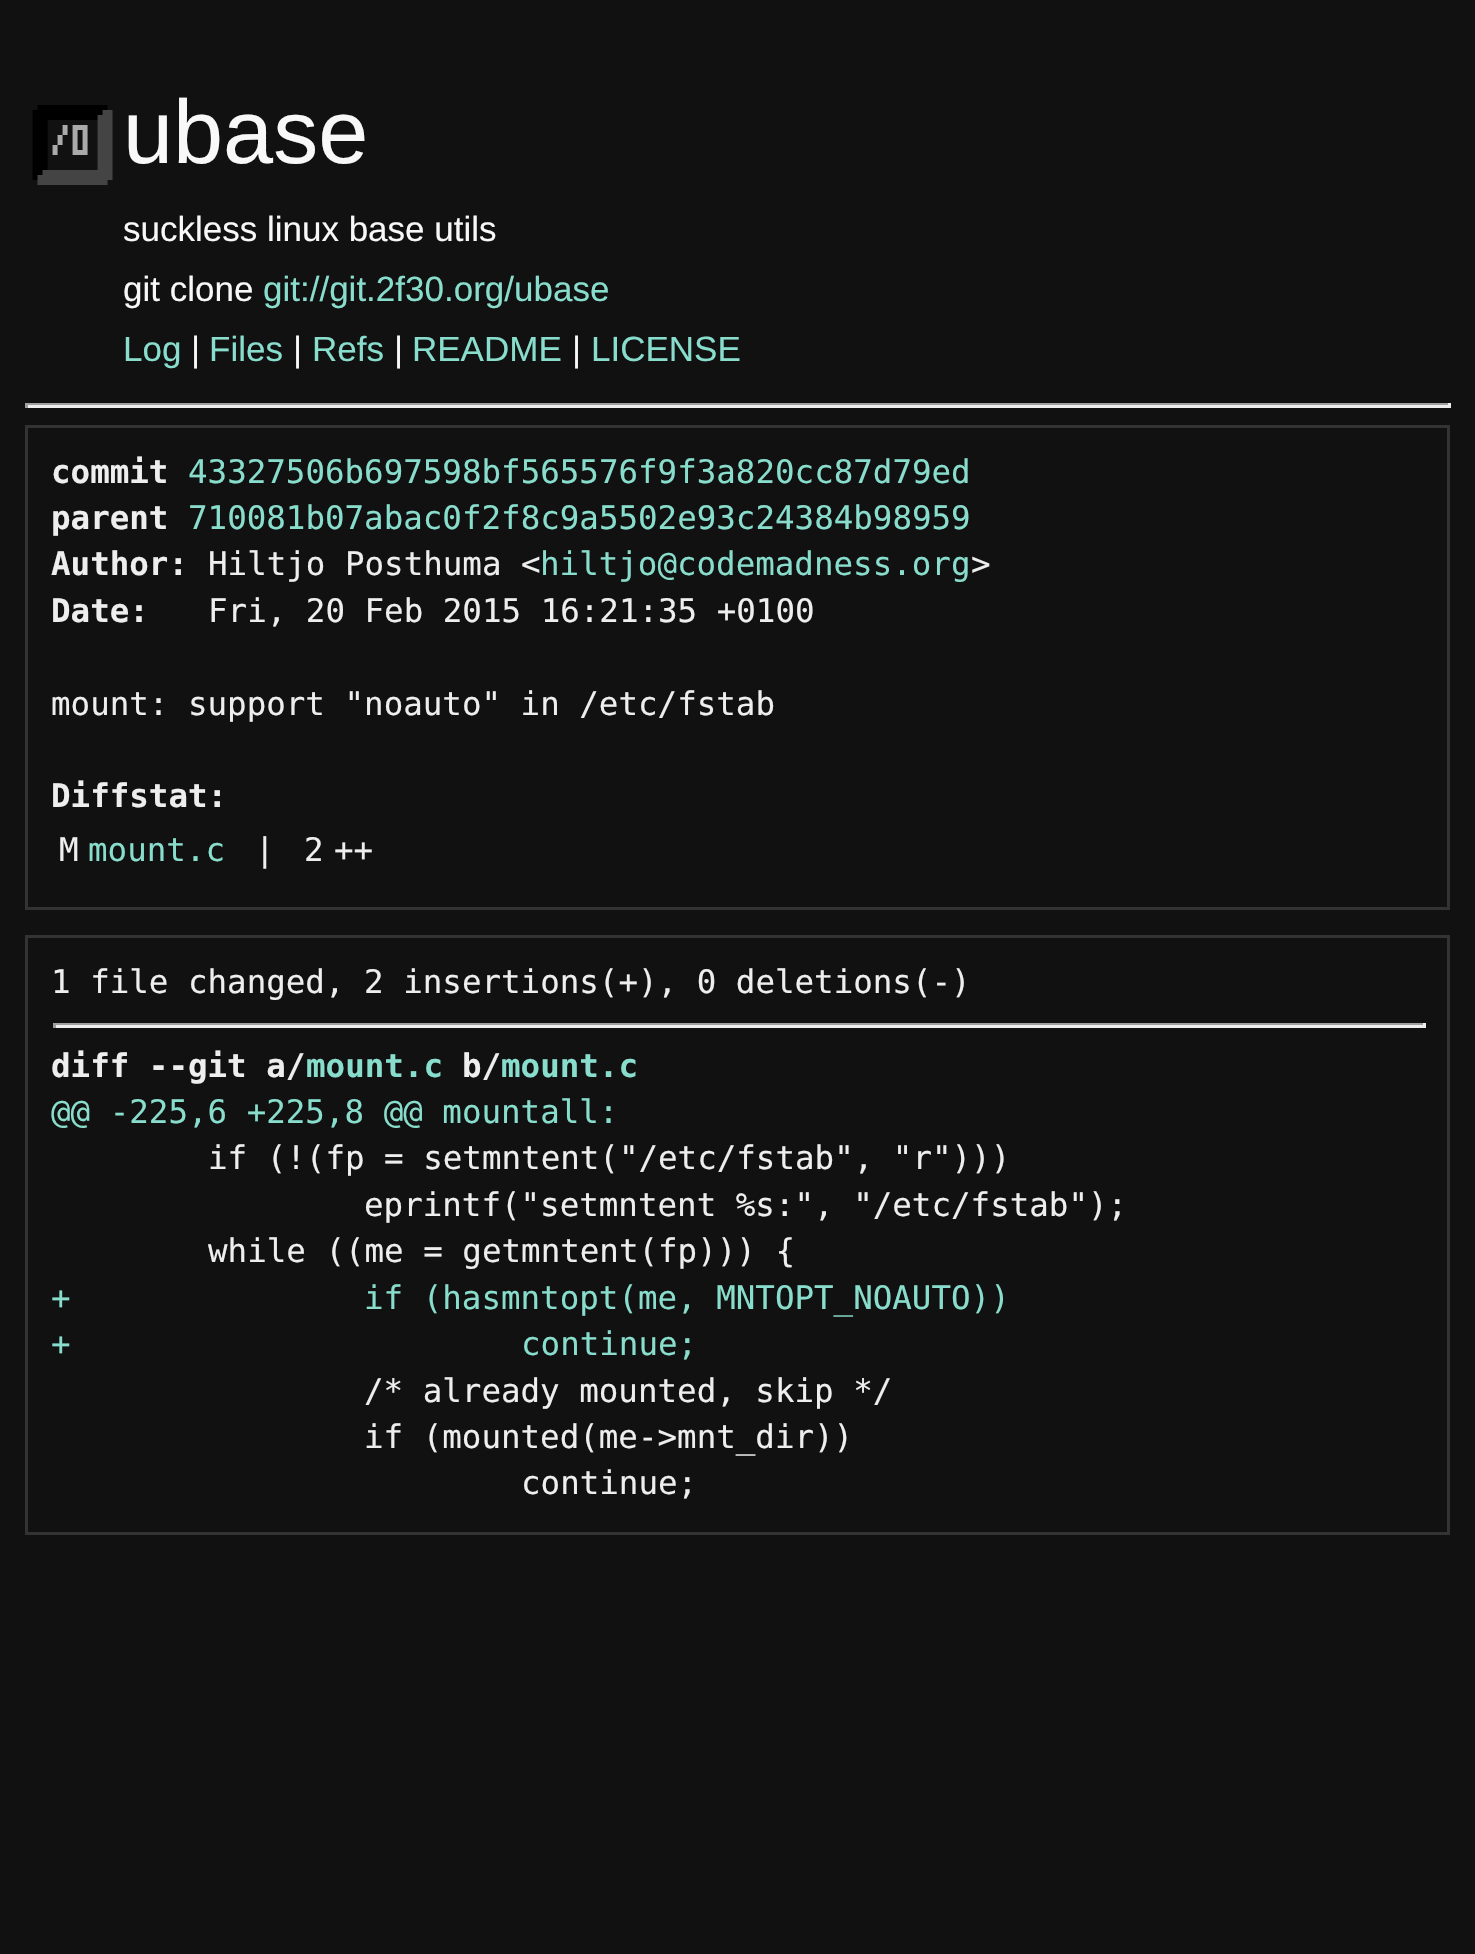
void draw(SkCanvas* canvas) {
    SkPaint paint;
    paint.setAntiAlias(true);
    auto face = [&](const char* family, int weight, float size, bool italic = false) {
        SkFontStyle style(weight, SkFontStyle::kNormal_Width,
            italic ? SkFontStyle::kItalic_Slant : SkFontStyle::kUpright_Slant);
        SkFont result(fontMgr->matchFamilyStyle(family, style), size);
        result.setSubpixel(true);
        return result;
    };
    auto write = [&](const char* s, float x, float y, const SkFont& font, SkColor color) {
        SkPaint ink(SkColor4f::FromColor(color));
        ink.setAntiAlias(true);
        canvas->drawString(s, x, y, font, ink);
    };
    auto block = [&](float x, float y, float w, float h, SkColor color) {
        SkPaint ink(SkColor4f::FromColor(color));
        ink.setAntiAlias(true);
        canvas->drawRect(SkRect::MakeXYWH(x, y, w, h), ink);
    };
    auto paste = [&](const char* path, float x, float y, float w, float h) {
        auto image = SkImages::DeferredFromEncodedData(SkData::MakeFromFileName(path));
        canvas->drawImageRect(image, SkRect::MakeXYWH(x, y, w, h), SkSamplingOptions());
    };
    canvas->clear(SkColorSetRGB(17, 17, 17));
    paste("pic1.png", 32, 105, 81, 80);
    auto kFont1 = face("Liberation Sans", 400, 90);
    write("ubase", 123, 163, kFont1, SkColorSetRGB(248, 248, 248));
    auto kFont2 = face("Liberation Sans", 400, 35);
    write("suckless linux base utils", 123, 241, kFont2, SkColorSetRGB(248, 248, 248));
    write("git clone", 123, 301, kFont2, SkColorSetRGB(248, 248, 248));
    write("git://git.2f30.org/ubase", 263, 301, kFont2, SkColorSetRGB(136, 221, 204));
    write("Log", 123, 361, kFont2, SkColorSetRGB(136, 221, 204));
    write("|", 191, 361, kFont2, SkColorSetRGB(248, 248, 248));
    write("Files", 209, 361, kFont2, SkColorSetRGB(136, 221, 204));
    write("|", 293, 361, kFont2, SkColorSetRGB(248, 248, 248));
    write("Refs", 312, 361, kFont2, SkColorSetRGB(136, 221, 204));
    write("|", 394, 361, kFont2, SkColorSetRGB(248, 248, 248));
    write("README", 412, 361, kFont2, SkColorSetRGB(136, 221, 204));
    write("|", 572, 361, kFont2, SkColorSetRGB(248, 248, 248));
    write("LICENSE", 591, 361, kFont2, SkColorSetRGB(136, 221, 204));
    block(25, 403, 1425, 2, SkColorSetRGB(159, 159, 159));
    block(1448, 403, 3, 5, SkColorSetRGB(238, 238, 238));
    block(25, 405, 1425, 3, SkColorSetRGB(238, 238, 238));
    block(25, 403, 3, 5, SkColorSetRGB(159, 159, 159));
    paint.setStyle(SkPaint::kStroke_Style);
    paint.setStrokeWidth(3);
    paint.setColor(SkColorSetRGB(51, 51, 51));
    canvas->drawRect(SkRect::MakeXYWH(26.5f, 426.5f, 1422, 482), paint);
    auto kFont3 = face("DejaVu Sans Mono", 700, 32.5f);
    write("commit", 51, 483, kFont3, SkColorSetRGB(238, 238, 238));
    auto kFont4 = face("DejaVu Sans Mono", 400, 32.5f);
    write("43327506b697598bf565576f9f3a820cc87d79ed", 188, 483, kFont4, SkColorSetRGB(136, 221, 204));
    write("parent", 51, 529, kFont3, SkColorSetRGB(238, 238, 238));
    write("710081b07abac0f2f8c9a5502e93c24384b98959", 188, 529, kFont4, SkColorSetRGB(136, 221, 204));
    write("Author:", 51, 575, kFont3, SkColorSetRGB(238, 238, 238));
    write("Hiltjo Posthuma <", 208, 575, kFont4, SkColorSetRGB(238, 238, 238));
    write("hiltjo@codemadness.org", 540, 575, kFont4, SkColorSetRGB(136, 221, 204));
    write(">", 971, 575, kFont4, SkColorSetRGB(238, 238, 238));
    write("Date:", 51, 622, kFont3, SkColorSetRGB(238, 238, 238));
    write("Fri, 20 Feb 2015 16:21:35 +0100", 208, 622, kFont4, SkColorSetRGB(238, 238, 238));
    write("mount: support \"noauto\" in /etc/fstab", 51, 715, kFont4, SkColorSetRGB(238, 238, 238));
    write("Diffstat:", 51, 807, kFont3, SkColorSetRGB(238, 238, 238));
    write("M", 59, 861, kFont4, SkColorSetRGB(238, 238, 238));
    write("mount.c", 88, 861, kFont4, SkColorSetRGB(136, 221, 204));
    write("|", 255, 861, kFont4, SkColorSetRGB(238, 238, 238));
    write("2", 304, 861, kFont4, SkColorSetRGB(238, 238, 238));
    write("++", 334, 861, kFont4, SkColorSetRGB(238, 238, 238));
    canvas->drawRect(SkRect::MakeXYWH(26.5f, 936.5f, 1422, 597), paint);
    write("1 file changed, 2 insertions(+), 0 deletions(-)", 51, 993, kFont4, SkColorSetRGB(238, 238, 238));
    block(53, 1023, 1372, 2, SkColorSetRGB(159, 159, 159));
    block(1423, 1023, 3, 5, SkColorSetRGB(238, 238, 238));
    block(53, 1025, 1372, 3, SkColorSetRGB(238, 238, 238));
    block(53, 1023, 3, 5, SkColorSetRGB(159, 159, 159));
    write("diff --git a/", 51, 1077, kFont3, SkColorSetRGB(238, 238, 238));
    write("mount.c", 306, 1077, kFont3, SkColorSetRGB(136, 221, 204));
    write("b/", 462, 1077, kFont3, SkColorSetRGB(238, 238, 238));
    write("mount.c", 501, 1077, kFont3, SkColorSetRGB(136, 221, 204));
    write("@@ -225,6 +225,8 @@ mountall:", 51, 1123, kFont4, SkColorSetRGB(136, 221, 204));
    write("if (!(fp = setmntent(\"/etc/fstab\", \"r\")))", 208, 1169, kFont4, SkColorSetRGB(238, 238, 238));
    write("eprintf(\"setmntent %s:\", \"/etc/fstab\");", 364, 1216, kFont4, SkColorSetRGB(238, 238, 238));
    write("while ((me = getmntent(fp))) {", 208, 1262, kFont4, SkColorSetRGB(238, 238, 238));
    write("+", 51, 1309, kFont4, SkColorSetRGB(136, 221, 204));
    write("if (hasmntopt(me, MNTOPT_NOAUTO))", 364, 1309, kFont4, SkColorSetRGB(136, 221, 204));
    write("+", 51, 1355, kFont4, SkColorSetRGB(136, 221, 204));
    write("continue;", 521, 1355, kFont4, SkColorSetRGB(136, 221, 204));
    write("/* already mounted, skip */", 364, 1402, kFont4, SkColorSetRGB(238, 238, 238));
    write("if (mounted(me->mnt_dir))", 364, 1448, kFont4, SkColorSetRGB(238, 238, 238));
    write("continue;", 521, 1494, kFont4, SkColorSetRGB(238, 238, 238));
}
